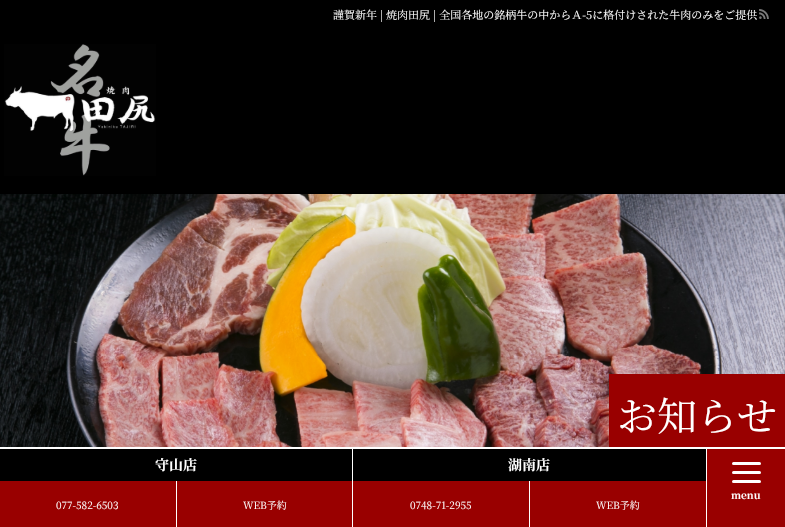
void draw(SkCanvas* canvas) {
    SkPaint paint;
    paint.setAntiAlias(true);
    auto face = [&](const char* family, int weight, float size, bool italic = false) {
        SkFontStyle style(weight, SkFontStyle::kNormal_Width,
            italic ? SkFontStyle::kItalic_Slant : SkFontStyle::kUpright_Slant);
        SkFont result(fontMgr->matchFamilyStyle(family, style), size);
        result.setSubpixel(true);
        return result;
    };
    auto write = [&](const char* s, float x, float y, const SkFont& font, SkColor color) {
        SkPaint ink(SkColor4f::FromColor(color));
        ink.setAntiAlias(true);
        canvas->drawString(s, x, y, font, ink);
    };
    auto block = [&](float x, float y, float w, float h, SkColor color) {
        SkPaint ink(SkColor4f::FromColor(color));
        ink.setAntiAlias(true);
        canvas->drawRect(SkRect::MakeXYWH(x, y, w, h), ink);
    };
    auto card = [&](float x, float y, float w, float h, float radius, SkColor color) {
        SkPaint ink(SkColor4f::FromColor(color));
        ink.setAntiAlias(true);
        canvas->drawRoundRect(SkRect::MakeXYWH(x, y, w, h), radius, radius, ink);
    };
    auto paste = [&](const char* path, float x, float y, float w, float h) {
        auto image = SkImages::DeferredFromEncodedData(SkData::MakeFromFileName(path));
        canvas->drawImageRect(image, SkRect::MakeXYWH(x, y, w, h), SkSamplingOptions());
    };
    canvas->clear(SK_ColorBLACK);
    auto kFont1 = face("Noto Serif JP", 400, 11);
    write("謹賀新年 | 焼肉田尻 | 全国各地の銘柄牛の中からＡ-5に格付けされた牛肉のみをご提供", 333, 19, kFont1, SK_ColorWHITE);
    paste("pic1.png", 759, 9, 10, 10);
    paste("pic2.png", 4, 44, 152, 132);
    paste("pic3.png", 0, 194, 785, 253);
    block(609, 374, 176, 73, SkColorSetRGB(153, 0, 0));
    auto kFont2 = face("Noto Serif JP", 400, 40);
    write("お知らせ", 617, 431, kFont2, SK_ColorWHITE);
    block(0, 449, 785, 78, SkColorSetRGB(153, 0, 0));
    block(0, 447, 785, 2, SK_ColorWHITE);
    block(352, 449, 1, 78, SK_ColorWHITE);
    block(0, 449, 352, 32, SK_ColorBLACK);
    auto kFont3 = face("Noto Serif JP", 700, 14);
    write("守山店", 155, 470, kFont3, SK_ColorWHITE);
    auto kFont4 = face("Noto Serif JP", 400, 10);
    write("077-582-6503", 56, 509, kFont4, SK_ColorWHITE);
    block(176, 481, 1, 46, SK_ColorWHITE);
    write("WEB予約", 243, 509, kFont4, SK_ColorWHITE);
    block(706, 449, 1, 78, SK_ColorWHITE);
    block(353, 449, 353, 32, SK_ColorBLACK);
    write("湖南店", 508, 470, kFont3, SK_ColorWHITE);
    write("0748-71-2955", 410, 509, kFont4, SK_ColorWHITE);
    block(529, 481, 1, 46, SK_ColorWHITE);
    write("WEB予約", 596, 509, kFont4, SK_ColorWHITE);
    card(732, 462, 29, 3, 1.5f, SK_ColorWHITE);
    card(732, 471, 29, 3, 1.5f, SK_ColorWHITE);
    card(732, 480, 29, 3, 1.5f, SK_ColorWHITE);
    auto kFont5 = face("Noto Serif JP", 700, 10);
    write("menu", 731, 499, kFont5, SK_ColorWHITE);
}
